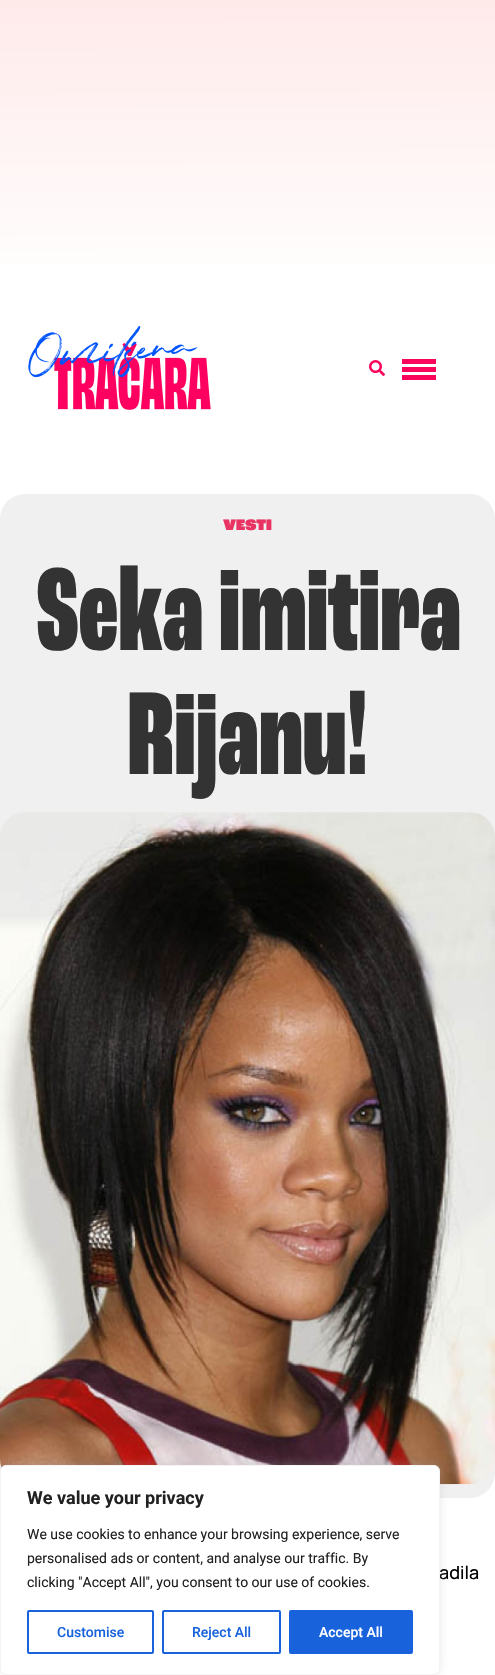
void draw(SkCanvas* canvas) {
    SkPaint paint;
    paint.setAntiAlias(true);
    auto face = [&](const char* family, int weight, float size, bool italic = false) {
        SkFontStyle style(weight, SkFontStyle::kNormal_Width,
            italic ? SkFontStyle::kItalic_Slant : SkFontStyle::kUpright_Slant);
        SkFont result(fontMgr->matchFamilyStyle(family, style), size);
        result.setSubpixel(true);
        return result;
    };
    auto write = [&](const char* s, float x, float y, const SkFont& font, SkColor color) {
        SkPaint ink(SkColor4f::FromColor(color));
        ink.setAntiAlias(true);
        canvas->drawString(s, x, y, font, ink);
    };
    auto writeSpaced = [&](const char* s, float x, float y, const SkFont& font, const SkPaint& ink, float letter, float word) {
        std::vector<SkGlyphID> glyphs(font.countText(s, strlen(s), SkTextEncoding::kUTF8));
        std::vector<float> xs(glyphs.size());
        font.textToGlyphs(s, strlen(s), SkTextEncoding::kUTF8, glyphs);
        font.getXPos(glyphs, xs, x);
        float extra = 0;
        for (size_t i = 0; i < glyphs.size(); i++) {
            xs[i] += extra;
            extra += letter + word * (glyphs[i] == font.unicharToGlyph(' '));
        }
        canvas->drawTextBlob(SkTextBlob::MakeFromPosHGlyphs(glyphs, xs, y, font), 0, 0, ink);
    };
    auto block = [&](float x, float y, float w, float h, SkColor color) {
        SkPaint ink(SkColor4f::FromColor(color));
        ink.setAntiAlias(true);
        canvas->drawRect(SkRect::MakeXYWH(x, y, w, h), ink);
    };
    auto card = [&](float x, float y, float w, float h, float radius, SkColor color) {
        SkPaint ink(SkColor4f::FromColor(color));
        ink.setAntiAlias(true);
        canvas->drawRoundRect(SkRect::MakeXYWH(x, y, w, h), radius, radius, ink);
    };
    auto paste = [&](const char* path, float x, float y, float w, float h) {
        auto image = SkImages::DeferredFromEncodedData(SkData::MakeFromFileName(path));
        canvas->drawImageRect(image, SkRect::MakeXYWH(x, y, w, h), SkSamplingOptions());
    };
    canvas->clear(SK_ColorWHITE);
    {
        const SkColor colors[] = {SkColorSetRGB(255, 234, 234), SK_ColorWHITE};
        const float stops[] = {0, 1};
        const SkPoint ends[] = {{247, 0}, {248, 300}};
        paint.setShader(SkGradientShader::MakeLinear(ends, colors, stops, 2, SkTileMode::kClamp));
        paint.setAlpha(255);
    }
    canvas->drawRect(SkRect::MakeXYWH(0, 0, 495, 265), paint);
    paste("pic1.png", 28, 326, 183, 84);
    paste("pic2.png", 369, 360, 16, 16);
    block(402, 359, 34, 5, SkColorSetRGB(251, 4, 92));
    block(402, 367, 34, 5, SkColorSetRGB(251, 4, 92));
    block(402, 375, 34, 5, SkColorSetRGB(251, 4, 92));
    card(0, 494, 495, 1004, 25, SkColorSetRGB(240, 240, 240));
    auto kFont1 = face("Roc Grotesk", 900, 16);
    write("VESTI", 223, 530, kFont1, SkColorSetRGB(233, 51, 99));
    auto kFont2 = face("Roc Grotesk", 800, 124);
    paint.setShader(nullptr);
    paint.setColor(SkColorSetRGB(51, 51, 51));
    writeSpaced("Seka imitira", 36, 650, kFont2, paint, -1.1f, 0);
    writeSpaced("Rijanu!", 127, 774, kFont2, paint, -1.1f, 0);
    paste("pic3.png", 0, 812, 495, 673);
    auto kFont3 = face("Manrope", 500, 18);
    write("adila", 439, 1579, kFont3, SK_ColorBLACK);
    paint.setColor(SkColorSetARGB(77, 172, 171, 171));
    paint.setMaskFilter(SkMaskFilter::MakeBlur(kNormal_SkBlurStyle, 5));
    canvas->drawRoundRect(SkRect::MakeXYWH(0, 1464, 440, 210), 6, 6, paint);
    paint.setMaskFilter(nullptr);
    paint.setColor(SK_ColorWHITE);
    canvas->drawRoundRect(SkRect::MakeXYWH(0.5f, 1465.5f, 439, 209), 5.5f, 5.5f, paint);
    paint.setStyle(SkPaint::kStroke_Style);
    paint.setStrokeWidth(1);
    paint.setColor(SkColorSetRGB(244, 244, 244));
    canvas->drawRoundRect(SkRect::MakeXYWH(0.5f, 1465.5f, 439, 209), 5.5f, 5.5f, paint);
    auto kFont4 = face("Roboto", 700, 18);
    write("We value your privacy", 27, 1504, kFont4, SkColorSetRGB(33, 33, 33));
    auto kFont5 = face("Roboto", 400, 14);
    write("We use cookies to enhance your browsing experience, serve", 27, 1539, kFont5, SkColorSetRGB(33, 33, 33));
    write("personalised ads or content, and analyse our traffic. By", 27, 1563, kFont5, SkColorSetRGB(33, 33, 33));
    write("clicking \"Accept All\", you consent to our use of cookies.", 27, 1587, kFont5, SkColorSetRGB(33, 33, 33));
    paint.setStrokeWidth(2);
    paint.setColor(SkColorSetRGB(24, 99, 220));
    canvas->drawRoundRect(SkRect::MakeXYWH(28, 1611, 125, 42), 1, 1, paint);
    auto kFont6 = face("Roboto", 500, 14);
    write("Customise", 57, 1637, kFont6, SkColorSetRGB(24, 99, 220));
    canvas->drawRoundRect(SkRect::MakeXYWH(163, 1611, 117, 42), 1, 1, paint);
    write("Reject All", 192, 1637, kFont6, SkColorSetRGB(24, 99, 220));
    paint.setStyle(SkPaint::kFill_Style);
    canvas->drawRoundRect(SkRect::MakeXYWH(290, 1611, 122, 42), 1, 1, paint);
    paint.setStyle(SkPaint::kStroke_Style);
    canvas->drawRoundRect(SkRect::MakeXYWH(290, 1611, 122, 42), 1, 1, paint);
    write("Accept All", 319, 1637, kFont6, SK_ColorWHITE);
}
